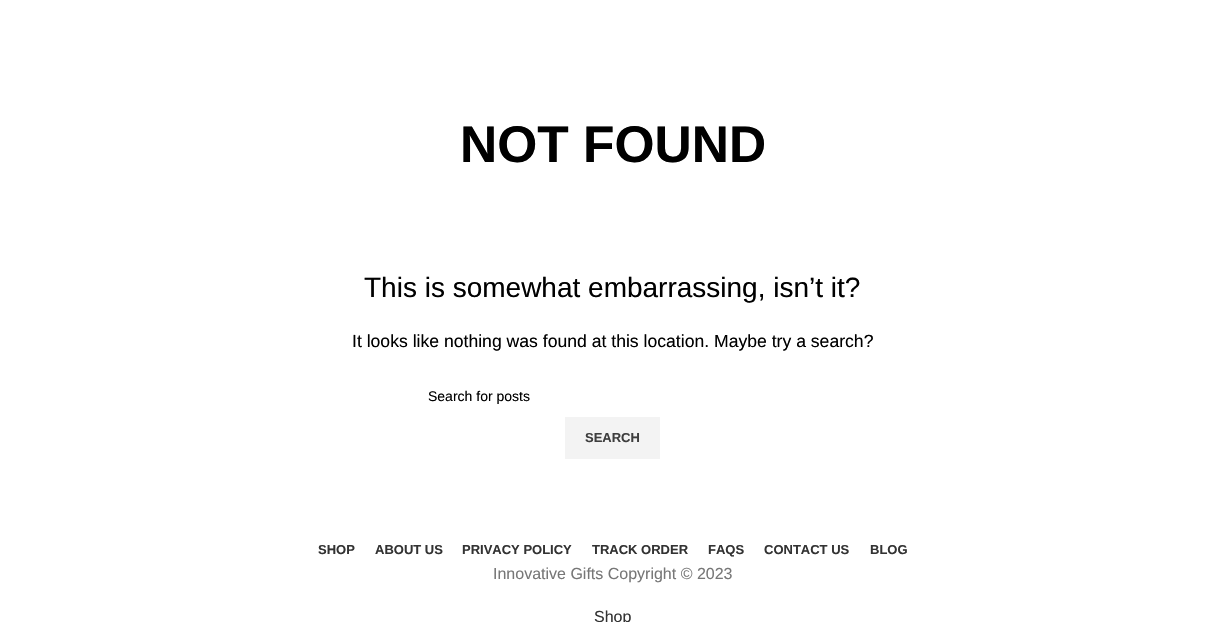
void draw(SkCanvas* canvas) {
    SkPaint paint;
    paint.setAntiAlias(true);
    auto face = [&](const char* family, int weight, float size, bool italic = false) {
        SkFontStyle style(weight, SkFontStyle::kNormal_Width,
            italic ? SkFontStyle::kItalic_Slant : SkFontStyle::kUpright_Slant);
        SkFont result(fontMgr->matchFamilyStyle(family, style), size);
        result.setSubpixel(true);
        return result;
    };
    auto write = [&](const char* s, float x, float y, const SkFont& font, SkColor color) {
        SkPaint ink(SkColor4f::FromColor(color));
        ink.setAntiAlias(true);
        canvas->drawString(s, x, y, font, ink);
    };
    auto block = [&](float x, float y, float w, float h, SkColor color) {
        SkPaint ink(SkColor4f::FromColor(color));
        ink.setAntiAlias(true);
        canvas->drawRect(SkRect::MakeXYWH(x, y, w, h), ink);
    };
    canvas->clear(SK_ColorWHITE);
    auto kFont1 = face("Liberation Sans", 700, 51.5f);
    write("NOT FOUND", 460, 162, kFont1, SK_ColorBLACK);
    auto kFont2 = face("Liberation Sans", 400, 28);
    write("This is somewhat embarrassing, isn’t it?", 364, 297, kFont2, SK_ColorBLACK);
    auto kFont3 = face("Liberation Sans", 400, 17.6f);
    write("It looks like nothing was found at this location. Maybe try a search?", 352, 347, kFont3, SK_ColorBLACK);
    auto kFont4 = face("Liberation Sans", 400, 14);
    write("Search for posts", 428, 401, kFont4, SK_ColorBLACK);
    block(565, 417, 95, 42, SkColorSetRGB(243, 243, 243));
    auto kFont5 = face("Liberation Sans", 700, 13);
    write("SEARCH", 585, 442, kFont5, SkColorSetRGB(62, 62, 62));
    write("SHOP", 318, 554, kFont5, SkColorSetRGB(51, 51, 51));
    write("ABOUT US", 375, 554, kFont5, SkColorSetRGB(51, 51, 51));
    write("PRIVACY POLICY", 462, 554, kFont5, SkColorSetRGB(51, 51, 51));
    write("TRACK ORDER", 592, 554, kFont5, SkColorSetRGB(51, 51, 51));
    write("FAQS", 708, 554, kFont5, SkColorSetRGB(51, 51, 51));
    write("CONTACT US", 764, 554, kFont5, SkColorSetRGB(51, 51, 51));
    write("BLOG", 870, 554, kFont5, SkColorSetRGB(51, 51, 51));
    auto kFont6 = face("Liberation Sans", 400, 16);
    write("Innovative Gifts Copyright © 2023", 493, 579, kFont6, SkColorSetRGB(119, 119, 119));
    write("Shop", 594, 622, kFont6, SkColorSetRGB(51, 51, 51));
}
